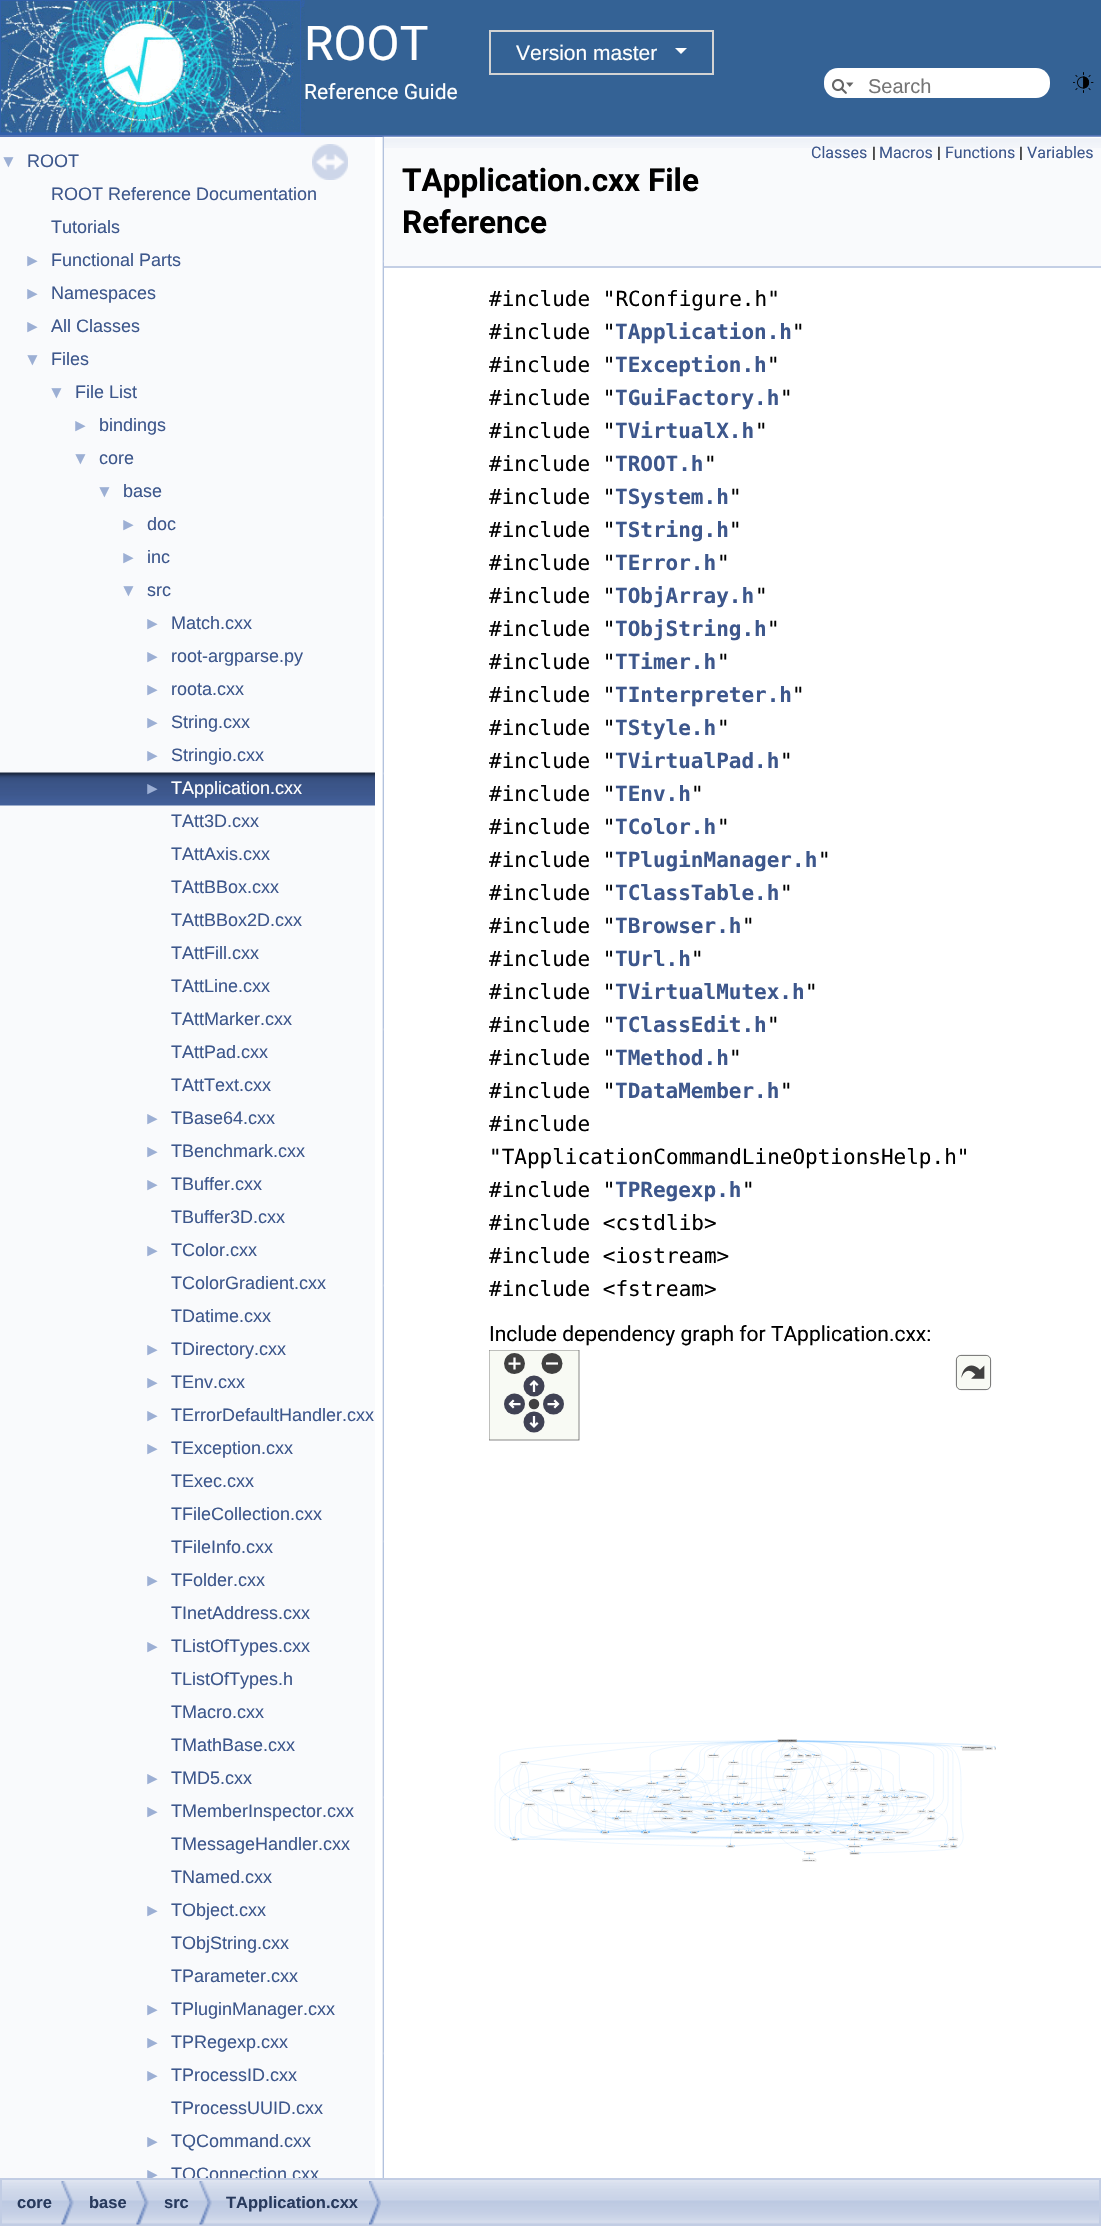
void draw(SkCanvas* canvas) {
    SkPaint paint;
    paint.setAntiAlias(true);
    auto face = [&](const char* family, int weight, float size, bool italic = false) {
        SkFontStyle style(weight, SkFontStyle::kNormal_Width,
            italic ? SkFontStyle::kItalic_Slant : SkFontStyle::kUpright_Slant);
        SkFont result(fontMgr->matchFamilyStyle(family, style), size);
        result.setSubpixel(true);
        return result;
    };
    auto write = [&](const char* s, float x, float y, const SkFont& font, SkColor color) {
        SkPaint ink(SkColor4f::FromColor(color));
        ink.setAntiAlias(true);
        canvas->drawString(s, x, y, font, ink);
    };
    auto block = [&](float x, float y, float w, float h, SkColor color) {
        SkPaint ink(SkColor4f::FromColor(color));
        ink.setAntiAlias(true);
        canvas->drawRect(SkRect::MakeXYWH(x, y, w, h), ink);
    };
    auto card = [&](float x, float y, float w, float h, float radius, SkColor color) {
        SkPaint ink(SkColor4f::FromColor(color));
        ink.setAntiAlias(true);
        canvas->drawRoundRect(SkRect::MakeXYWH(x, y, w, h), radius, radius, ink);
    };
    auto paste = [&](const char* path, float x, float y, float w, float h) {
        auto image = SkImages::DeferredFromEncodedData(SkData::MakeFromFileName(path));
        canvas->drawImageRect(image, SkRect::MakeXYWH(x, y, w, h), SkSamplingOptions());
    };
    canvas->clear(SK_ColorWHITE);
    block(0, 135, 1101, 2, SkColorSetRGB(83, 115, 180));
    block(304, 0, 797, 135, SkColorSetRGB(52, 98, 149));
    {
        const SkColor colors[] = {SkColorSetRGB(52, 98, 149), SkColorSetRGB(52, 98, 149), SkColorSetRGB(61, 87, 140)};
        const float stops[] = {0, 0.94f, 1};
        const SkPoint ends[] = {{152, 106}, {152, 131}};
        paint.setShader(SkGradientShader::MakeLinear(ends, colors, stops, 3, SkTileMode::kClamp));
        paint.setAlpha(255);
    }
    canvas->drawRect(SkRect::MakeXYWH(304, 130, 1, 1), paint);
    paste("pic1.png", 0, 0, 305, 135);
    auto kFont1 = face("Roboto", 400, 48);
    write("ROOT", 304, 60, kFont1, SK_ColorWHITE);
    paint.setStyle(SkPaint::kStroke_Style);
    paint.setStrokeWidth(2);
    paint.setShader(nullptr);
    paint.setColor(SkColorSetRGB(211, 211, 211));
    canvas->drawRect(SkRect::MakeXYWH(490, 31, 223, 43), paint);
    auto kFont2 = face("Liberation Sans", 400, 21);
    write("Version master", 516, 60, kFont2, SK_ColorWHITE);
    paint.setStyle(SkPaint::kFill_Style);
    paint.setColor(SK_ColorWHITE);
    canvas->drawPath(SkPathBuilder().moveTo(675, 48).lineTo(687, 48).lineTo(681, 54).close().detach(), paint);
    auto kFont3 = face("Roboto", 400, 21);
    write("Reference Guide", 304, 99, kFont3, SK_ColorWHITE);
    card(824, 68, 226, 30, 14, SK_ColorWHITE);
    paste("pic2.png", 832, 79, 22, 15);
    auto kFont4 = face("Liberation Sans", 400, 20);
    write("Search", 868, 93, kFont4, SkColorSetRGB(117, 117, 117));
    paste("pic3.png", 1073, 72, 21, 21);
    block(0, 137, 375, 2041, SkColorSetRGB(249, 250, 252));
    paste("pic4.png", 312, 144, 36, 36);
    auto kFont5 = face("Liberation Sans", 400, 17);
    write("▼", 0, 167, kFont5, SkColorSetRGB(156, 175, 212));
    auto kFont6 = face("Liberation Sans", 400, 18);
    write("ROOT", 27, 167, kFont6, SkColorSetRGB(61, 87, 140));
    write("ROOT Reference Documentation", 51, 200, kFont6, SkColorSetRGB(61, 87, 140));
    write("Tutorials", 51, 233, kFont6, SkColorSetRGB(61, 87, 140));
    write("►", 24, 266, kFont5, SkColorSetRGB(156, 175, 212));
    write("Functional Parts", 51, 266, kFont6, SkColorSetRGB(61, 87, 140));
    write("►", 24, 299, kFont5, SkColorSetRGB(156, 175, 212));
    write("Namespaces", 51, 299, kFont6, SkColorSetRGB(61, 87, 140));
    write("►", 24, 332, kFont5, SkColorSetRGB(156, 175, 212));
    write("All Classes", 51, 332, kFont6, SkColorSetRGB(61, 87, 140));
    write("▼", 24, 365, kFont5, SkColorSetRGB(156, 175, 212));
    write("Files", 51, 365, kFont6, SkColorSetRGB(61, 87, 140));
    write("▼", 48, 398, kFont5, SkColorSetRGB(156, 175, 212));
    write("File List", 75, 398, kFont6, SkColorSetRGB(61, 87, 140));
    write("►", 72, 431, kFont5, SkColorSetRGB(156, 175, 212));
    write("bindings", 99, 431, kFont6, SkColorSetRGB(61, 87, 140));
    write("▼", 72, 464, kFont5, SkColorSetRGB(156, 175, 212));
    write("core", 99, 464, kFont6, SkColorSetRGB(61, 87, 140));
    write("▼", 96, 497, kFont5, SkColorSetRGB(156, 175, 212));
    write("base", 123, 497, kFont6, SkColorSetRGB(61, 87, 140));
    write("►", 120, 530, kFont5, SkColorSetRGB(156, 175, 212));
    write("doc", 147, 530, kFont6, SkColorSetRGB(61, 87, 140));
    write("►", 120, 563, kFont5, SkColorSetRGB(156, 175, 212));
    write("inc", 147, 563, kFont6, SkColorSetRGB(61, 87, 140));
    write("▼", 120, 596, kFont5, SkColorSetRGB(156, 175, 212));
    write("src", 147, 596, kFont6, SkColorSetRGB(61, 87, 140));
    write("►", 144, 629, kFont5, SkColorSetRGB(156, 175, 212));
    write("Match.cxx", 171, 629, kFont6, SkColorSetRGB(61, 87, 140));
    write("►", 144, 662, kFont5, SkColorSetRGB(156, 175, 212));
    write("root-argparse.py", 171, 662, kFont6, SkColorSetRGB(61, 87, 140));
    write("►", 144, 695, kFont5, SkColorSetRGB(156, 175, 212));
    write("roota.cxx", 171, 695, kFont6, SkColorSetRGB(61, 87, 140));
    write("►", 144, 728, kFont5, SkColorSetRGB(156, 175, 212));
    write("String.cxx", 171, 728, kFont6, SkColorSetRGB(61, 87, 140));
    write("►", 144, 761, kFont5, SkColorSetRGB(156, 175, 212));
    write("Stringio.cxx", 171, 761, kFont6, SkColorSetRGB(61, 87, 140));
    paste("pic5.png", 0, 772, 375, 34);
    write("►", 144, 794, kFont5, SkColorSetRGB(156, 175, 212));
    write("TApplication.cxx", 171, 794, kFont6, SK_ColorWHITE);
    write("TAtt3D.cxx", 171, 827, kFont6, SkColorSetRGB(61, 87, 140));
    write("TAttAxis.cxx", 171, 860, kFont6, SkColorSetRGB(61, 87, 140));
    write("TAttBBox.cxx", 171, 893, kFont6, SkColorSetRGB(61, 87, 140));
    write("TAttBBox2D.cxx", 171, 926, kFont6, SkColorSetRGB(61, 87, 140));
    write("TAttFill.cxx", 171, 959, kFont6, SkColorSetRGB(61, 87, 140));
    write("TAttLine.cxx", 171, 992, kFont6, SkColorSetRGB(61, 87, 140));
    write("TAttMarker.cxx", 171, 1025, kFont6, SkColorSetRGB(61, 87, 140));
    write("TAttPad.cxx", 171, 1058, kFont6, SkColorSetRGB(61, 87, 140));
    write("TAttText.cxx", 171, 1091, kFont6, SkColorSetRGB(61, 87, 140));
    write("►", 144, 1124, kFont5, SkColorSetRGB(156, 175, 212));
    write("TBase64.cxx", 171, 1124, kFont6, SkColorSetRGB(61, 87, 140));
    write("►", 144, 1157, kFont5, SkColorSetRGB(156, 175, 212));
    write("TBenchmark.cxx", 171, 1157, kFont6, SkColorSetRGB(61, 87, 140));
    write("►", 144, 1190, kFont5, SkColorSetRGB(156, 175, 212));
    write("TBuffer.cxx", 171, 1190, kFont6, SkColorSetRGB(61, 87, 140));
    write("TBuffer3D.cxx", 171, 1223, kFont6, SkColorSetRGB(61, 87, 140));
    write("►", 144, 1256, kFont5, SkColorSetRGB(156, 175, 212));
    write("TColor.cxx", 171, 1256, kFont6, SkColorSetRGB(61, 87, 140));
    write("TColorGradient.cxx", 171, 1289, kFont6, SkColorSetRGB(61, 87, 140));
    write("TDatime.cxx", 171, 1322, kFont6, SkColorSetRGB(61, 87, 140));
    write("►", 144, 1355, kFont5, SkColorSetRGB(156, 175, 212));
    write("TDirectory.cxx", 171, 1355, kFont6, SkColorSetRGB(61, 87, 140));
    write("►", 144, 1388, kFont5, SkColorSetRGB(156, 175, 212));
    write("TEnv.cxx", 171, 1388, kFont6, SkColorSetRGB(61, 87, 140));
    write("►", 144, 1421, kFont5, SkColorSetRGB(156, 175, 212));
    write("TErrorDefaultHandler.cxx", 171, 1421, kFont6, SkColorSetRGB(61, 87, 140));
    write("►", 144, 1454, kFont5, SkColorSetRGB(156, 175, 212));
    write("TException.cxx", 171, 1454, kFont6, SkColorSetRGB(61, 87, 140));
    write("TExec.cxx", 171, 1487, kFont6, SkColorSetRGB(61, 87, 140));
    write("TFileCollection.cxx", 171, 1520, kFont6, SkColorSetRGB(61, 87, 140));
    write("TFileInfo.cxx", 171, 1553, kFont6, SkColorSetRGB(61, 87, 140));
    write("►", 144, 1586, kFont5, SkColorSetRGB(156, 175, 212));
    write("TFolder.cxx", 171, 1586, kFont6, SkColorSetRGB(61, 87, 140));
    write("TInetAddress.cxx", 171, 1619, kFont6, SkColorSetRGB(61, 87, 140));
    write("►", 144, 1652, kFont5, SkColorSetRGB(156, 175, 212));
    write("TListOfTypes.cxx", 171, 1652, kFont6, SkColorSetRGB(61, 87, 140));
    write("TListOfTypes.h", 171, 1685, kFont6, SkColorSetRGB(61, 87, 140));
    write("TMacro.cxx", 171, 1718, kFont6, SkColorSetRGB(61, 87, 140));
    write("TMathBase.cxx", 171, 1751, kFont6, SkColorSetRGB(61, 87, 140));
    write("►", 144, 1784, kFont5, SkColorSetRGB(156, 175, 212));
    write("TMD5.cxx", 171, 1784, kFont6, SkColorSetRGB(61, 87, 140));
    write("►", 144, 1817, kFont5, SkColorSetRGB(156, 175, 212));
    write("TMemberInspector.cxx", 171, 1817, kFont6, SkColorSetRGB(61, 87, 140));
    write("TMessageHandler.cxx", 171, 1850, kFont6, SkColorSetRGB(61, 87, 140));
    write("TNamed.cxx", 171, 1883, kFont6, SkColorSetRGB(61, 87, 140));
    write("►", 144, 1916, kFont5, SkColorSetRGB(156, 175, 212));
    write("TObject.cxx", 171, 1916, kFont6, SkColorSetRGB(61, 87, 140));
    write("TObjString.cxx", 171, 1949, kFont6, SkColorSetRGB(61, 87, 140));
    write("TParameter.cxx", 171, 1982, kFont6, SkColorSetRGB(61, 87, 140));
    write("►", 144, 2015, kFont5, SkColorSetRGB(156, 175, 212));
    write("TPluginManager.cxx", 171, 2015, kFont6, SkColorSetRGB(61, 87, 140));
    write("►", 144, 2048, kFont5, SkColorSetRGB(156, 175, 212));
    write("TPRegexp.cxx", 171, 2048, kFont6, SkColorSetRGB(61, 87, 140));
    write("►", 144, 2081, kFont5, SkColorSetRGB(156, 175, 212));
    write("TProcessID.cxx", 171, 2081, kFont6, SkColorSetRGB(61, 87, 140));
    write("TProcessUUID.cxx", 171, 2114, kFont6, SkColorSetRGB(61, 87, 140));
    write("►", 144, 2147, kFont5, SkColorSetRGB(156, 175, 212));
    write("TQCommand.cxx", 171, 2147, kFont6, SkColorSetRGB(61, 87, 140));
    canvas->save();
    canvas->clipRect(SkRect::MakeXYWH(0, 137, 375, 2041));
    write("►", 144, 2180, kFont5, SkColorSetRGB(156, 175, 212));
    write("TQConnection.cxx", 171, 2180, kFont6, SkColorSetRGB(61, 87, 140));
    canvas->restore();
    paste("pic6.png", 382, 136, 2, 2042);
    block(384, 148, 717, 118, SkColorSetRGB(249, 250, 252));
    paste("pic7.png", 384, 136, 717, 12);
    block(384, 266, 717, 2, SkColorSetRGB(196, 207, 229));
    auto kFont7 = face("Roboto", 400, 16);
    write("Classes", 811, 158, kFont7, SkColorSetRGB(61, 87, 140));
    write("|", 872, 158, kFont7, SK_ColorBLACK);
    write("Macros", 879, 158, kFont7, SkColorSetRGB(61, 87, 140));
    write("|", 937, 158, kFont7, SK_ColorBLACK);
    write("Functions", 945, 158, kFont7, SkColorSetRGB(61, 87, 140));
    write("|", 1019, 158, kFont7, SK_ColorBLACK);
    write("Variables", 1027, 158, kFont7, SkColorSetRGB(61, 87, 140));
    auto kFont8 = face("Roboto", 700, 31.5f);
    write("TApplication.cxx File", 402, 191, kFont8, SK_ColorBLACK);
    write("Reference", 402, 233, kFont8, SK_ColorBLACK);
    auto kFont9 = face("DejaVu Sans Mono", 400, 21);
    write("#include \"RConfigure.h\"", 489, 306, kFont9, SK_ColorBLACK);
    write("#include \"", 489, 339, kFont9, SK_ColorBLACK);
    auto kFont10 = face("DejaVu Sans Mono", 700, 21);
    write("TApplication.h", 615, 339, kFont10, SkColorSetRGB(61, 87, 140));
    write("\"", 792, 339, kFont9, SK_ColorBLACK);
    write("#include \"", 489, 372, kFont9, SK_ColorBLACK);
    write("TException.h", 615, 372, kFont10, SkColorSetRGB(61, 87, 140));
    write("\"", 767, 372, kFont9, SK_ColorBLACK);
    write("#include \"", 489, 405, kFont9, SK_ColorBLACK);
    write("TGuiFactory.h", 615, 405, kFont10, SkColorSetRGB(61, 87, 140));
    write("\"", 780, 405, kFont9, SK_ColorBLACK);
    write("#include \"", 489, 438, kFont9, SK_ColorBLACK);
    write("TVirtualX.h", 615, 438, kFont10, SkColorSetRGB(61, 87, 140));
    write("\"", 755, 438, kFont9, SK_ColorBLACK);
    write("#include \"", 489, 471, kFont9, SK_ColorBLACK);
    write("TROOT.h", 615, 471, kFont10, SkColorSetRGB(61, 87, 140));
    write("\"", 704, 471, kFont9, SK_ColorBLACK);
    write("#include \"", 489, 504, kFont9, SK_ColorBLACK);
    write("TSystem.h", 615, 504, kFont10, SkColorSetRGB(61, 87, 140));
    write("\"", 729, 504, kFont9, SK_ColorBLACK);
    write("#include \"", 489, 537, kFont9, SK_ColorBLACK);
    write("TString.h", 615, 537, kFont10, SkColorSetRGB(61, 87, 140));
    write("\"", 729, 537, kFont9, SK_ColorBLACK);
    write("#include \"", 489, 570, kFont9, SK_ColorBLACK);
    write("TError.h", 615, 570, kFont10, SkColorSetRGB(61, 87, 140));
    write("\"", 717, 570, kFont9, SK_ColorBLACK);
    write("#include \"", 489, 603, kFont9, SK_ColorBLACK);
    write("TObjArray.h", 615, 603, kFont10, SkColorSetRGB(61, 87, 140));
    write("\"", 755, 603, kFont9, SK_ColorBLACK);
    write("#include \"", 489, 636, kFont9, SK_ColorBLACK);
    write("TObjString.h", 615, 636, kFont10, SkColorSetRGB(61, 87, 140));
    write("\"", 767, 636, kFont9, SK_ColorBLACK);
    write("#include \"", 489, 669, kFont9, SK_ColorBLACK);
    write("TTimer.h", 615, 669, kFont10, SkColorSetRGB(61, 87, 140));
    write("\"", 717, 669, kFont9, SK_ColorBLACK);
    write("#include \"", 489, 702, kFont9, SK_ColorBLACK);
    write("TInterpreter.h", 615, 702, kFont10, SkColorSetRGB(61, 87, 140));
    write("\"", 792, 702, kFont9, SK_ColorBLACK);
    write("#include \"", 489, 735, kFont9, SK_ColorBLACK);
    write("TStyle.h", 615, 735, kFont10, SkColorSetRGB(61, 87, 140));
    write("\"", 717, 735, kFont9, SK_ColorBLACK);
    write("#include \"", 489, 768, kFont9, SK_ColorBLACK);
    write("TVirtualPad.h", 615, 768, kFont10, SkColorSetRGB(61, 87, 140));
    write("\"", 780, 768, kFont9, SK_ColorBLACK);
    write("#include \"", 489, 801, kFont9, SK_ColorBLACK);
    write("TEnv.h", 615, 801, kFont10, SkColorSetRGB(61, 87, 140));
    write("\"", 691, 801, kFont9, SK_ColorBLACK);
    write("#include \"", 489, 834, kFont9, SK_ColorBLACK);
    write("TColor.h", 615, 834, kFont10, SkColorSetRGB(61, 87, 140));
    write("\"", 717, 834, kFont9, SK_ColorBLACK);
    write("#include \"", 489, 867, kFont9, SK_ColorBLACK);
    write("TPluginManager.h", 615, 867, kFont10, SkColorSetRGB(61, 87, 140));
    write("\"", 818, 867, kFont9, SK_ColorBLACK);
    write("#include \"", 489, 900, kFont9, SK_ColorBLACK);
    write("TClassTable.h", 615, 900, kFont10, SkColorSetRGB(61, 87, 140));
    write("\"", 780, 900, kFont9, SK_ColorBLACK);
    write("#include \"", 489, 933, kFont9, SK_ColorBLACK);
    write("TBrowser.h", 615, 933, kFont10, SkColorSetRGB(61, 87, 140));
    write("\"", 742, 933, kFont9, SK_ColorBLACK);
    write("#include \"", 489, 966, kFont9, SK_ColorBLACK);
    write("TUrl.h", 615, 966, kFont10, SkColorSetRGB(61, 87, 140));
    write("\"", 691, 966, kFont9, SK_ColorBLACK);
    write("#include \"", 489, 999, kFont9, SK_ColorBLACK);
    write("TVirtualMutex.h", 615, 999, kFont10, SkColorSetRGB(61, 87, 140));
    write("\"", 805, 999, kFont9, SK_ColorBLACK);
    write("#include \"", 489, 1032, kFont9, SK_ColorBLACK);
    write("TClassEdit.h", 615, 1032, kFont10, SkColorSetRGB(61, 87, 140));
    write("\"", 767, 1032, kFont9, SK_ColorBLACK);
    write("#include \"", 489, 1065, kFont9, SK_ColorBLACK);
    write("TMethod.h", 615, 1065, kFont10, SkColorSetRGB(61, 87, 140));
    write("\"", 729, 1065, kFont9, SK_ColorBLACK);
    write("#include \"", 489, 1098, kFont9, SK_ColorBLACK);
    write("TDataMember.h", 615, 1098, kFont10, SkColorSetRGB(61, 87, 140));
    write("\"", 780, 1098, kFont9, SK_ColorBLACK);
    write("#include", 489, 1131, kFont9, SK_ColorBLACK);
    write("\"TApplicationCommandLineOptionsHelp.h\"", 489, 1164, kFont9, SK_ColorBLACK);
    write("#include \"", 489, 1197, kFont9, SK_ColorBLACK);
    write("TPRegexp.h", 615, 1197, kFont10, SkColorSetRGB(61, 87, 140));
    write("\"", 742, 1197, kFont9, SK_ColorBLACK);
    write("#include <cstdlib>", 489, 1230, kFont9, SK_ColorBLACK);
    write("#include <iostream>", 489, 1263, kFont9, SK_ColorBLACK);
    write("#include <fstream>", 489, 1296, kFont9, SK_ColorBLACK);
    write("Include dependency graph for TApplication.cxx:", 489, 1341, kFont3, SK_ColorBLACK);
    paste("pic8.png", 489, 1350, 507, 512);
    paste("pic9.png", 2, 2180, 1097, 44);
    paint.setStyle(SkPaint::kStroke_Style);
    paint.setColor(SkColorSetRGB(194, 205, 228));
    canvas->drawRect(SkRect::MakeXYWH(1, 2179, 1099, 46), paint);
    paste("pic10.png", 61, 2181, 13, 44);
    auto kFont11 = face("Liberation Sans", 700, 16.5f);
    write("core", 17, 2208, kFont11, SkColorSetRGB(40, 58, 93));
    paste("pic10.png", 136, 2181, 13, 44);
    write("base", 89, 2208, kFont11, SkColorSetRGB(40, 58, 93));
    paste("pic10.png", 199, 2181, 13, 44);
    write("src", 164, 2208, kFont11, SkColorSetRGB(40, 58, 93));
    paste("pic11.png", 369, 2181, 12, 44);
    write("TApplication.cxx", 226, 2208, kFont11, SkColorSetRGB(40, 58, 93));
}
